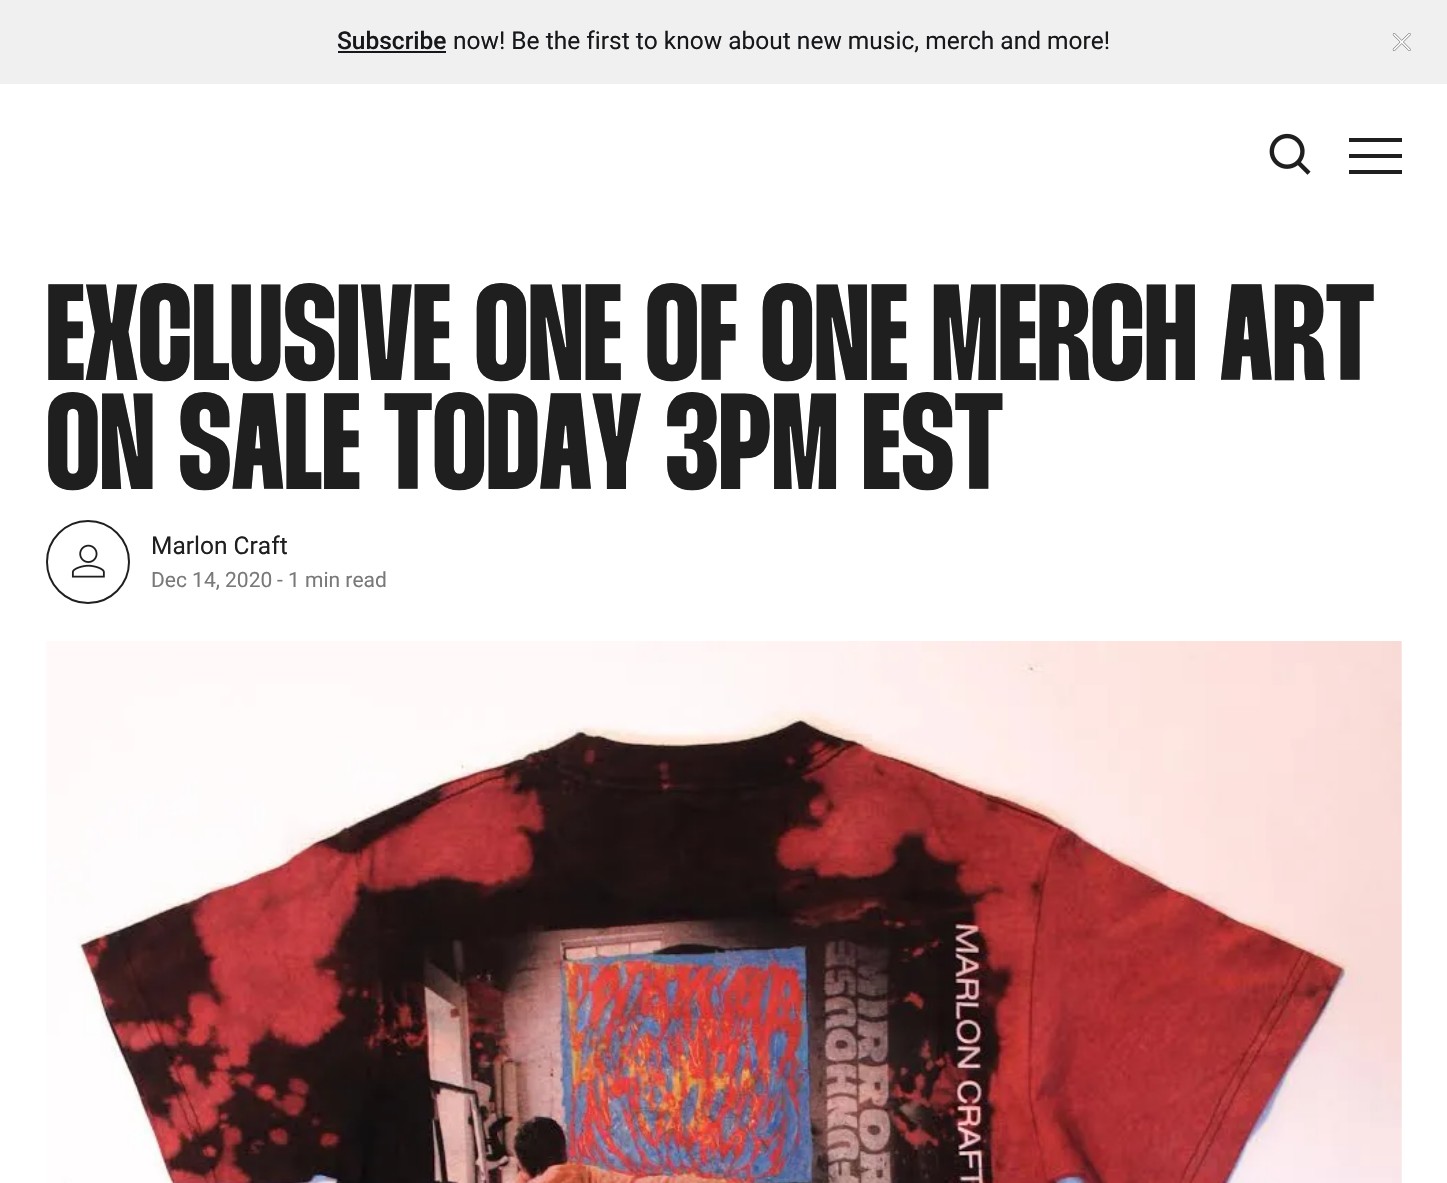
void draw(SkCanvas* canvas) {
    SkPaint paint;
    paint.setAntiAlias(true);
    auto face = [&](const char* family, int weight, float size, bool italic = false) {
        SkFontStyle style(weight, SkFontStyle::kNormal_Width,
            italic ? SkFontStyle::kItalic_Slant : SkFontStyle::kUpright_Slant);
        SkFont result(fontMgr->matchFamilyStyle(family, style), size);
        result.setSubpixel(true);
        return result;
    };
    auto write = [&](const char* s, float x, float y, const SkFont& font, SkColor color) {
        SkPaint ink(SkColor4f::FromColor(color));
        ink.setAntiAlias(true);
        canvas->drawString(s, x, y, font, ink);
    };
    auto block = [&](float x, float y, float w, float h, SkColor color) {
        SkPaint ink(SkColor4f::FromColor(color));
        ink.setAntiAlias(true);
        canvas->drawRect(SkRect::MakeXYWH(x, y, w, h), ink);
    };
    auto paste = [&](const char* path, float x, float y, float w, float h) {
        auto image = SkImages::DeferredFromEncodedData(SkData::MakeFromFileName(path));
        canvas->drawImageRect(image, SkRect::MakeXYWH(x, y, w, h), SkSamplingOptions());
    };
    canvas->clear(SK_ColorWHITE);
    block(0, 0, 1447, 84, SkColorSetRGB(240, 240, 240));
    auto kFont1 = face("Roboto", 500, 24.5f);
    write("Subscribe", 337, 49, kFont1, SkColorSetRGB(22, 24, 27));
    block(338, 51, 108, 2, SkColorSetRGB(22, 24, 27));
    auto kFont2 = face("Roboto", 400, 24.5f);
    write("now! Be the first to know about new music, merch and more!", 453, 49, kFont2, SkColorSetRGB(22, 24, 27));
    paste("pic1.png", 1392, 33, 19, 18);
    paste("pic2.png", 1269, 133, 42, 42);
    block(1349, 138, 53, 4, SkColorSetRGB(31, 31, 31));
    block(1349, 154, 53, 4, SkColorSetRGB(31, 31, 31));
    block(1349, 170, 53, 4, SkColorSetRGB(31, 31, 31));
    auto kFont3 = face("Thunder", 700, 136.5f);
    write("EXCLUSIVE ONE OF ONE MERCH ART", 46, 380, kFont3, SkColorSetRGB(31, 31, 31));
    write("ON SALE TODAY 3PM EST", 46, 489, kFont3, SkColorSetRGB(31, 31, 31));
    paint.setStyle(SkPaint::kStroke_Style);
    paint.setStrokeWidth(2);
    paint.setColor(SkColorSetRGB(31, 31, 31));
    canvas->drawCircle(88, 562, 41, paint);
    paste("pic3.png", 71, 544, 34, 34);
    write("Marlon Craft", 151, 554, kFont2, SkColorSetRGB(31, 31, 31));
    auto kFont4 = face("Roboto", 400, 21);
    write("Dec 14, 2020", 151, 587, kFont4, SkColorSetRGB(121, 121, 121));
    write("- 1 min read", 277, 587, kFont4, SkColorSetRGB(121, 121, 121));
    paste("pic4.png", 46, 641, 1356, 542);
}
